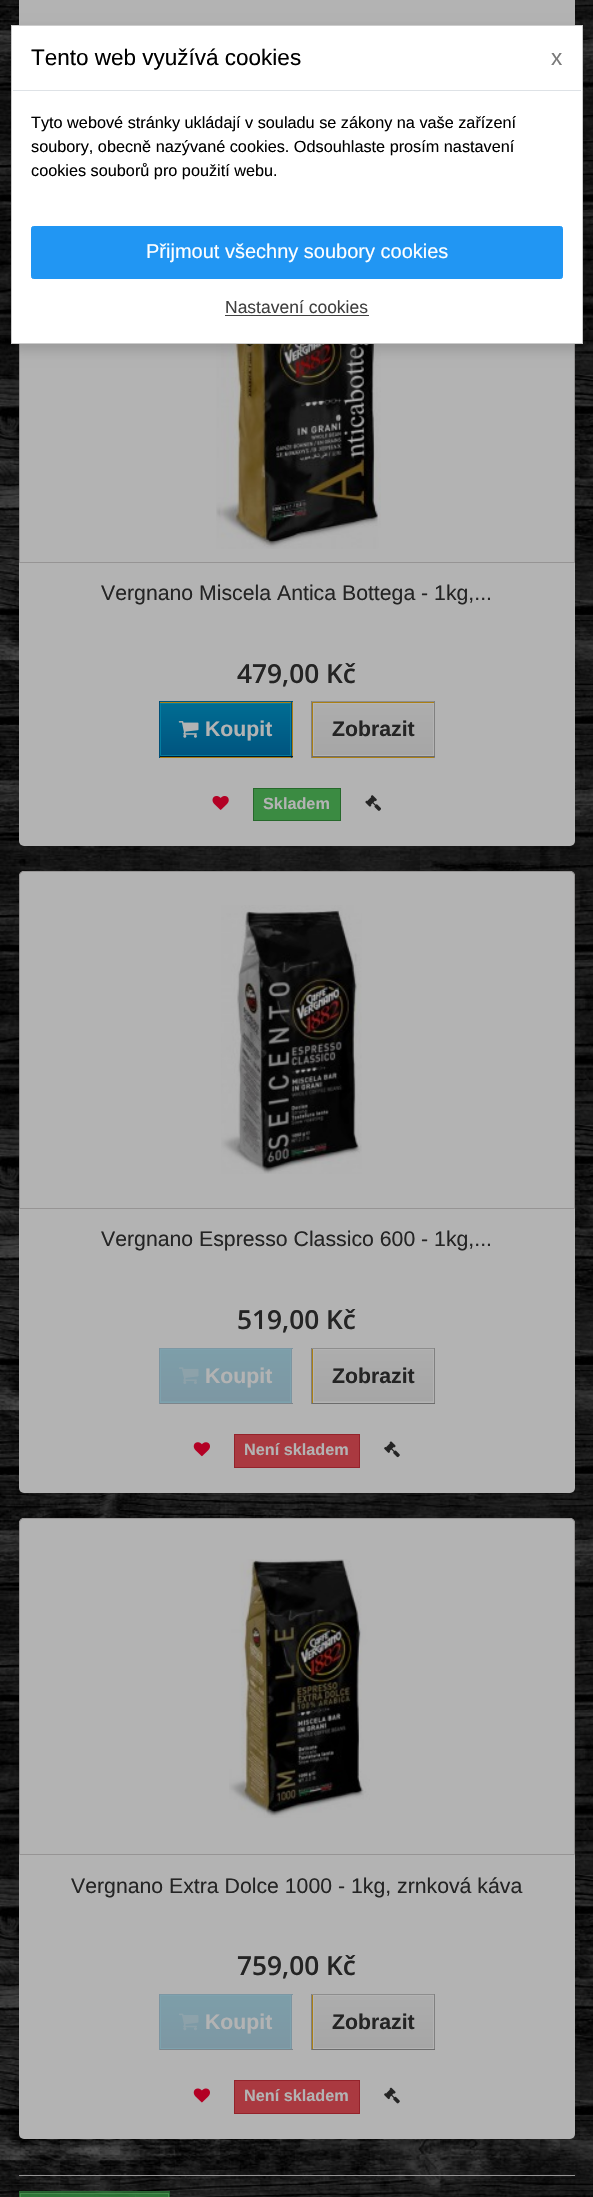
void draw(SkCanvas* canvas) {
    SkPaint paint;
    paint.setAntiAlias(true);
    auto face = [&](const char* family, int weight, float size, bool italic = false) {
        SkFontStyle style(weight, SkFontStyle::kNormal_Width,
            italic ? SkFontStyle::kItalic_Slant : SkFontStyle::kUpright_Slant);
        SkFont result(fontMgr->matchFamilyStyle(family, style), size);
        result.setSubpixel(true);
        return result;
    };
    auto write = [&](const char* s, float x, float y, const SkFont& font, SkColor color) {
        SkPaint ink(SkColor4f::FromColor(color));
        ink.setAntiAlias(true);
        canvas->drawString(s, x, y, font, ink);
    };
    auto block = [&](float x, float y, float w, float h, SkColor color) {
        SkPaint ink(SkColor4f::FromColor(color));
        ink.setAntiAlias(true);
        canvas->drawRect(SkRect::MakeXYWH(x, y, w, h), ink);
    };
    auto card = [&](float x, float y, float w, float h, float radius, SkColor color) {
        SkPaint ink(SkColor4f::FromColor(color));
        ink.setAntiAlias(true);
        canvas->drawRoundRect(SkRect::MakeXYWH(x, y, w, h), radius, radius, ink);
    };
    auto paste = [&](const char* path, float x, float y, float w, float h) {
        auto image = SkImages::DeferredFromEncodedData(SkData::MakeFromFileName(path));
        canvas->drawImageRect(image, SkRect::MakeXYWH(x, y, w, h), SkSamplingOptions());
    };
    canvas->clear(SK_ColorWHITE);
    paste("pic1.png", 0, 0, 593, 2197);
    block(19, 0, 556, 25, SkColorSetRGB(179, 179, 179));
    card(19, 225, 556, 621, 5, SkColorSetRGB(179, 179, 179));
    paint.setStyle(SkPaint::kStroke_Style);
    paint.setStrokeWidth(1);
    paint.setColor(SkColorSetRGB(150, 148, 148));
    canvas->drawRect(SkRect::MakeXYWH(19.5f, 225.5f, 555, 337), paint);
    paste("pic2.png", 216, 344, 165, 205);
    paint.setStyle(SkPaint::kFill_Style);
    paint.setColor(SkColorSetARGB(38, 0, 0, 0));
    paint.setMaskFilter(SkMaskFilter::MakeBlur(kNormal_SkBlurStyle, 6));
    canvas->drawRect(SkRect::MakeXYWH(11, 31, 572, 319), paint);
    paint.setMaskFilter(nullptr);
    paint.setColor(SK_ColorWHITE);
    canvas->drawRect(SkRect::MakeXYWH(11.5f, 25.5f, 571, 318), paint);
    paint.setStyle(SkPaint::kStroke_Style);
    paint.setColor(SkColorSetRGB(204, 204, 204));
    canvas->drawRect(SkRect::MakeXYWH(11.5f, 25.5f, 571, 318), paint);
    block(13, 90, 568, 1, SkColorSetRGB(222, 226, 230));
    auto kFont1 = face("Liberation Sans", 400, 22.5f);
    write("Tento web využívá cookies", 31, 65, kFont1, SK_ColorBLACK);
    write("x", 551, 65, kFont1, SkColorSetRGB(122, 122, 122));
    auto kFont2 = face("Liberation Sans", 400, 16.25f);
    write("Tyto webové stránky ukládají v souladu se zákony na vaše zařízení", 31, 128, kFont2, SK_ColorBLACK);
    write("soubory, obecně nazývané cookies. Odsouhlaste prosím nastavení", 31, 152, kFont2, SK_ColorBLACK);
    write("cookies souborů pro použití webu.", 31, 176, kFont2, SK_ColorBLACK);
    paint.setStyle(SkPaint::kFill_Style);
    paint.setColor(SkColorSetRGB(33, 150, 243));
    canvas->drawRoundRect(SkRect::MakeXYWH(31.5f, 226.5f, 531, 52), 2, 2, paint);
    paint.setStyle(SkPaint::kStroke_Style);
    canvas->drawRoundRect(SkRect::MakeXYWH(31.5f, 226.5f, 531, 52), 2, 2, paint);
    auto kFont3 = face("Liberation Sans", 400, 20);
    write("Přijmout všechny soubory cookies", 146, 258, kFont3, SK_ColorWHITE);
    auto kFont4 = face("Liberation Sans", 400, 17.5f);
    write("Nastavení cookies", 225, 313, kFont4, SkColorSetRGB(64, 64, 64));
    block(225, 315, 144, 1, SkColorSetRGB(64, 64, 64));
    auto kFont5 = face("Liberation Sans", 400, 21.25f);
    write("Vergnano Miscela Antica Bottega - 1kg,...", 101, 600, kFont5, SkColorSetRGB(36, 36, 36));
    auto kFont6 = face("Open Sans", 600, 26.25f);
    write("479,00 Kč", 237, 683, kFont6, SkColorSetRGB(36, 36, 36));
    block(160, 702, 133, 56, SkColorSetRGB(171, 127, 19));
    block(159, 701, 134, 1, SkColorSetRGB(0, 85, 127));
    block(291, 701, 1, 57, SkColorSetRGB(0, 78, 118));
    block(159, 756, 134, 1, SkColorSetRGB(1, 27, 45));
    block(159, 701, 1, 57, SkColorSetRGB(0, 78, 118));
    paint.setStyle(SkPaint::kFill_Style);
    {
        const SkColor colors[] = {SkColorSetRGB(0, 108, 146), SkColorSetRGB(0, 85, 128)};
        const float stops[] = {0, 1};
        const SkPoint ends[] = {{226, 704}, {226, 755}};
        paint.setShader(SkGradientShader::MakeLinear(ends, colors, stops, 2, SkTileMode::kClamp));
        paint.setAlpha(255);
    }
    canvas->drawRect(SkRect::MakeXYWH(161, 704, 129, 51), paint);
    paint.setStyle(SkPaint::kStroke_Style);
    paint.setShader(nullptr);
    paint.setColor(SkColorSetRGB(4, 125, 161));
    canvas->drawRect(SkRect::MakeXYWH(160.5f, 703.5f, 130, 52), paint);
    paste("pic3.png", 178, 721, 21, 17);
    auto kFont7 = face("Liberation Sans", 700, 21.25f);
    write("Koupit", 205, 736, kFont7, SkColorSetRGB(179, 179, 179));
    block(312, 702, 122, 56, SkColorSetRGB(171, 127, 19));
    block(311, 701, 124, 1, SkColorSetRGB(141, 141, 141));
    block(434, 701, 1, 57, SkColorSetRGB(128, 128, 128));
    block(311, 756, 124, 1, SkColorSetRGB(108, 108, 108));
    block(311, 701, 1, 57, SkColorSetRGB(128, 128, 128));
    paint.setStyle(SkPaint::kFill_Style);
    {
        const SkColor colors[] = {SkColorSetRGB(173, 173, 173), SkColorSetRGB(166, 166, 166)};
        const float stops[] = {0, 1};
        const SkPoint ends[] = {{373, 704}, {373, 755}};
        paint.setShader(SkGradientShader::MakeLinear(ends, colors, stops, 2, SkTileMode::kClamp));
        paint.setAlpha(255);
    }
    canvas->drawRect(SkRect::MakeXYWH(314, 704, 119, 51), paint);
    paint.setStyle(SkPaint::kStroke_Style);
    paint.setShader(nullptr);
    paint.setColor(SkColorSetRGB(179, 179, 179));
    canvas->drawRect(SkRect::MakeXYWH(313.5f, 703.5f, 120, 52), paint);
    write("Zobrazit", 332, 736, kFont7, SkColorSetRGB(36, 36, 36));
    paste("pic4.png", 212, 796, 17, 14);
    paint.setStyle(SkPaint::kFill_Style);
    paint.setColor(SkColorSetRGB(59, 139, 66));
    canvas->drawRect(SkRect::MakeXYWH(253.5f, 788.5f, 87, 32), paint);
    paint.setStyle(SkPaint::kStroke_Style);
    paint.setColor(SkColorSetRGB(38, 104, 43));
    canvas->drawRect(SkRect::MakeXYWH(253.5f, 788.5f, 87, 32), paint);
    auto kFont8 = face("Liberation Sans", 700, 16.25f);
    write("Skladem", 263, 809, kFont8, SkColorSetRGB(179, 179, 179));
    paste("pic5.png", 365, 795, 16, 16);
    card(19, 871, 556, 622, 5, SkColorSetRGB(179, 179, 179));
    paint.setColor(SkColorSetRGB(150, 148, 148));
    canvas->drawPath(SkPathBuilder().moveTo(24, 871.5f).lineTo(570, 871.5f).cubicTo(572.5f, 871.5f, 574.5f, 873.5f, 574.5f, 876).lineTo(574.5f, 1208.5f).lineTo(19.5f, 1208.5f).lineTo(19.5f, 876).cubicTo(19.5f, 873.5f, 21.5f, 871.5f, 24, 871.5f).close().detach(), paint);
    paste("pic6.png", 221, 905, 141, 269);
    write("Vergnano Espresso Classico 600 - 1kg,...", 101, 1246, kFont5, SkColorSetRGB(36, 36, 36));
    write("519,00 Kč", 237, 1329, kFont6, SkColorSetRGB(36, 36, 36));
    block(159, 1348, 134, 1, SkColorSetRGB(125, 151, 163));
    block(291, 1348, 1, 56, SkColorSetRGB(125, 148, 160));
    block(159, 1403, 134, 1, SkColorSetRGB(125, 133, 139));
    block(159, 1348, 1, 56, SkColorSetRGB(125, 148, 160));
    block(161, 1401, 129, 1, SkColorSetRGB(125, 158, 169));
    paint.setStyle(SkPaint::kFill_Style);
    {
        const SkColor colors[] = {SkColorSetRGB(125, 158, 169), SkColorSetRGB(125, 151, 163)};
        const float stops[] = {0, 1};
        const SkPoint ends[] = {{226, 1350}, {226, 1401}};
        paint.setShader(SkGradientShader::MakeLinear(ends, colors, stops, 2, SkTileMode::kClamp));
        paint.setAlpha(255);
    }
    canvas->drawRect(SkRect::MakeXYWH(161, 1350, 129, 51), paint);
    paint.setStyle(SkPaint::kStroke_Style);
    paint.setShader(nullptr);
    paint.setColor(SkColorSetRGB(126, 162, 174));
    canvas->drawRect(SkRect::MakeXYWH(160.5f, 1349.5f, 130, 53), paint);
    paste("pic7.png", 179, 1367, 20, 17);
    write("Koupit", 205, 1383, kFont7, SkColorSetRGB(179, 179, 179));
    block(312, 1349, 1, 54, SkColorSetRGB(171, 127, 19));
    block(311, 1348, 124, 1, SkColorSetRGB(141, 141, 141));
    block(434, 1348, 1, 56, SkColorSetRGB(128, 128, 128));
    block(311, 1403, 124, 1, SkColorSetRGB(108, 108, 108));
    block(311, 1348, 1, 56, SkColorSetRGB(128, 128, 128));
    block(314, 1401, 119, 1, SkColorSetRGB(173, 173, 173));
    paint.setStyle(SkPaint::kFill_Style);
    {
        const SkColor colors[] = {SkColorSetRGB(173, 173, 173), SkColorSetRGB(166, 166, 166)};
        const float stops[] = {0, 1};
        const SkPoint ends[] = {{373, 1350}, {373, 1401}};
        paint.setShader(SkGradientShader::MakeLinear(ends, colors, stops, 2, SkTileMode::kClamp));
        paint.setAlpha(255);
    }
    canvas->drawRect(SkRect::MakeXYWH(314, 1350, 119, 51), paint);
    write("Zobrazit", 332, 1383, kFont7, SkColorSetRGB(36, 36, 36));
    paste("pic8.png", 193, 1442, 17, 15);
    paint.setShader(nullptr);
    paint.setColor(SkColorSetRGB(170, 57, 64));
    canvas->drawRect(SkRect::MakeXYWH(234.5f, 1434.5f, 125, 33), paint);
    paint.setStyle(SkPaint::kStroke_Style);
    paint.setColor(SkColorSetRGB(148, 35, 43));
    canvas->drawRect(SkRect::MakeXYWH(234.5f, 1434.5f, 125, 33), paint);
    write("Není skladem", 244, 1455, kFont8, SkColorSetRGB(179, 179, 179));
    paste("pic9.png", 384, 1441, 16, 17);
    card(19, 1518, 556, 621, 5, SkColorSetRGB(179, 179, 179));
    paint.setColor(SkColorSetRGB(150, 148, 148));
    canvas->drawPath(SkPathBuilder().moveTo(24, 1518.5f).lineTo(570, 1518.5f).cubicTo(572.5f, 1518.5f, 574.5f, 1520.5f, 574.5f, 1523).lineTo(574.5f, 1854.5f).lineTo(19.5f, 1854.5f).lineTo(19.5f, 1523).cubicTo(19.5f, 1520.5f, 21.5f, 1518.5f, 24, 1518.5f).close().detach(), paint);
    paste("pic10.png", 229, 1559, 141, 259);
    write("Vergnano Extra Dolce 1000 - 1kg, zrnková káva", 71, 1893, kFont5, SkColorSetRGB(36, 36, 36));
    write("759,00 Kč", 237, 1975, kFont6, SkColorSetRGB(36, 36, 36));
    block(159, 1994, 134, 1, SkColorSetRGB(125, 151, 163));
    block(291, 1994, 1, 56, SkColorSetRGB(125, 148, 160));
    block(159, 2049, 134, 1, SkColorSetRGB(125, 133, 139));
    block(159, 1994, 1, 56, SkColorSetRGB(125, 148, 160));
    paint.setStyle(SkPaint::kFill_Style);
    {
        const SkColor colors[] = {SkColorSetRGB(125, 158, 169), SkColorSetRGB(125, 151, 163)};
        const float stops[] = {0, 1};
        const SkPoint ends[] = {{226, 1996}, {226, 2048}};
        paint.setShader(SkGradientShader::MakeLinear(ends, colors, stops, 2, SkTileMode::kClamp));
        paint.setAlpha(255);
    }
    canvas->drawRect(SkRect::MakeXYWH(161, 1996, 129, 52), paint);
    paint.setStyle(SkPaint::kStroke_Style);
    paint.setShader(nullptr);
    paint.setColor(SkColorSetRGB(126, 162, 174));
    canvas->drawRect(SkRect::MakeXYWH(160.5f, 1995.5f, 130, 53), paint);
    paste("pic11.png", 179, 2013, 20, 18);
    write("Koupit", 205, 2029, kFont7, SkColorSetRGB(179, 179, 179));
    block(312, 1995, 1, 54, SkColorSetRGB(171, 127, 19));
    block(311, 1994, 124, 1, SkColorSetRGB(141, 141, 141));
    block(434, 1994, 1, 56, SkColorSetRGB(128, 128, 128));
    block(311, 2049, 124, 1, SkColorSetRGB(108, 108, 108));
    block(311, 1994, 1, 56, SkColorSetRGB(128, 128, 128));
    paint.setStyle(SkPaint::kFill_Style);
    {
        const SkColor colors[] = {SkColorSetRGB(173, 173, 173), SkColorSetRGB(166, 166, 166)};
        const float stops[] = {0, 1};
        const SkPoint ends[] = {{373, 1996}, {373, 2048}};
        paint.setShader(SkGradientShader::MakeLinear(ends, colors, stops, 2, SkTileMode::kClamp));
        paint.setAlpha(255);
    }
    canvas->drawRect(SkRect::MakeXYWH(314, 1996, 119, 52), paint);
    write("Zobrazit", 332, 2029, kFont7, SkColorSetRGB(36, 36, 36));
    paste("pic12.png", 193, 2088, 17, 15);
    paint.setShader(nullptr);
    paint.setColor(SkColorSetRGB(170, 57, 64));
    canvas->drawRect(SkRect::MakeXYWH(234.5f, 2080.5f, 125, 33), paint);
    paint.setStyle(SkPaint::kStroke_Style);
    paint.setColor(SkColorSetRGB(148, 35, 43));
    canvas->drawRect(SkRect::MakeXYWH(234.5f, 2080.5f, 125, 33), paint);
    write("Není skladem", 244, 2101, kFont8, SkColorSetRGB(179, 179, 179));
    paste("pic13.png", 384, 2087, 16, 17);
    block(19, 2175, 556, 1, SkColorSetRGB(150, 148, 148));
    block(19, 2191, 151, 6, SkColorSetARGB(166, 47, 128, 59));
    paint.setStyle(SkPaint::kFill_Style);
    {
        const SkColor colors[] = {SkColorSetARGB(166, 47, 128, 59), SkColorSetARGB(166, 46, 120, 57)};
        const float stops[] = {0, 1};
        const SkPoint ends[] = {{94, 2193}, {94, 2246}};
        paint.setShader(SkGradientShader::MakeLinear(ends, colors, stops, 2, SkTileMode::kClamp));
        paint.setAlpha(255);
    }
    canvas->drawRect(SkRect::MakeXYWH(19, 2193, 151, 4), paint);
    block(19, 2191, 151, 1, SkColorSetARGB(166, 40, 108, 51));
    block(169, 2191, 1, 6, SkColorSetARGB(166, 25, 89, 35));
    block(19, 2191, 1, 6, SkColorSetARGB(166, 40, 108, 51));
    paint.setStyle(SkPaint::kStroke_Style);
    paint.setShader(nullptr);
    paint.setColor(SkColorSetARGB(166, 81, 149, 84));
    canvas->drawRect(SkRect::MakeXYWH(20.5f, 2193.5f, 148, 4), paint);
}
